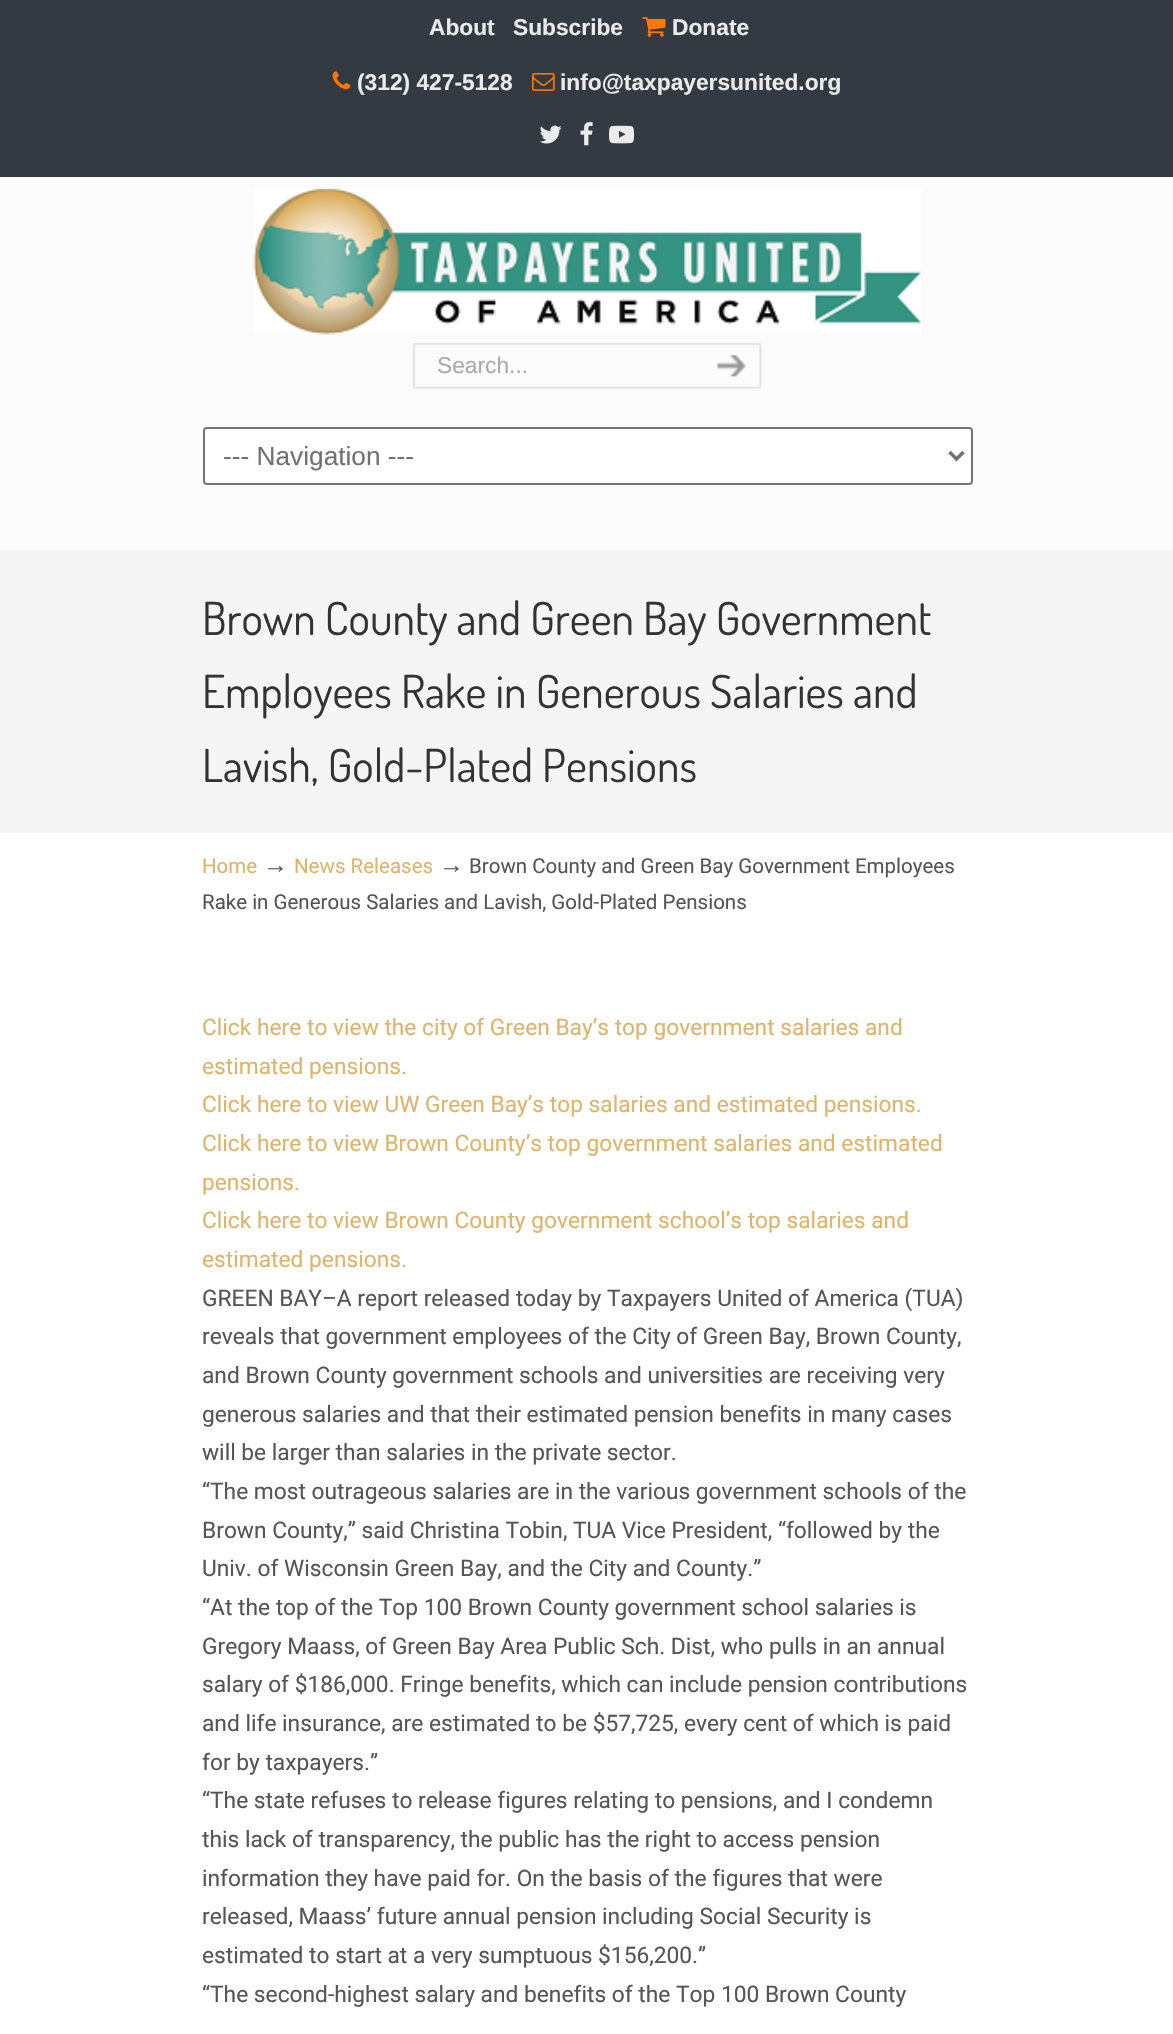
void draw(SkCanvas* canvas) {
    SkPaint paint;
    paint.setAntiAlias(true);
    auto face = [&](const char* family, int weight, float size, bool italic = false) {
        SkFontStyle style(weight, SkFontStyle::kNormal_Width,
            italic ? SkFontStyle::kItalic_Slant : SkFontStyle::kUpright_Slant);
        SkFont result(fontMgr->matchFamilyStyle(family, style), size);
        result.setSubpixel(true);
        return result;
    };
    auto write = [&](const char* s, float x, float y, const SkFont& font, SkColor color) {
        SkPaint ink(SkColor4f::FromColor(color));
        ink.setAntiAlias(true);
        canvas->drawString(s, x, y, font, ink);
    };
    auto block = [&](float x, float y, float w, float h, SkColor color) {
        SkPaint ink(SkColor4f::FromColor(color));
        ink.setAntiAlias(true);
        canvas->drawRect(SkRect::MakeXYWH(x, y, w, h), ink);
    };
    auto paste = [&](const char* path, float x, float y, float w, float h) {
        auto image = SkImages::DeferredFromEncodedData(SkData::MakeFromFileName(path));
        canvas->drawImageRect(image, SkRect::MakeXYWH(x, y, w, h), SkSamplingOptions());
    };
    canvas->clear(SkColorSetRGB(251, 251, 251));
    block(0, 0, 1173, 177, SkColorSetRGB(52, 58, 65));
    auto kFont1 = face("Liberation Sans", 700, 22.75f);
    write("About", 429, 35, kFont1, SkColorSetRGB(235, 235, 235));
    write("Subscribe", 513, 35, kFont1, SkColorSetRGB(235, 235, 235));
    paste("pic1.png", 642, 17, 24, 20);
    write("Donate", 672, 35, kFont1, SkColorSetRGB(235, 235, 235));
    paste("pic2.png", 332, 71, 19, 19);
    write("(312) 427-5128", 357, 90, kFont1, SkColorSetRGB(235, 235, 235));
    paste("pic3.png", 532, 73, 23, 18);
    write("info@taxpayersunited.org", 560, 90, kFont1, SkColorSetRGB(235, 235, 235));
    paste("pic4.png", 539, 125, 23, 19);
    paste("pic5.png", 580, 122, 13, 24);
    paste("pic6.png", 609, 125, 26, 19);
    paste("pic7.png", 253, 188, 668, 147);
    paste("pic8.png", 413, 343, 279, 46);
    auto kFont2 = face("Liberation Sans", 400, 22.75f);
    write("Search...", 437, 373, kFont2, SkColorSetRGB(170, 170, 170));
    paste("pic9.png", 691, 343, 71, 46);
    paint.setColor(SK_ColorWHITE);
    canvas->drawRoundRect(SkRect::MakeXYWH(204, 428, 768, 56), 3, 3, paint);
    paint.setStyle(SkPaint::kStroke_Style);
    paint.setStrokeWidth(2);
    paint.setColor(SkColorSetRGB(118, 118, 118));
    canvas->drawRoundRect(SkRect::MakeXYWH(204, 428, 768, 56), 3, 3, paint);
    paint.setStrokeWidth(3.5f);
    paint.setColor(SkColorSetRGB(113, 113, 113));
    canvas->drawPath(SkPathBuilder().moveTo(949.5f, 452).lineTo(956.5f, 459).lineTo(963.5f, 452).detach(), paint);
    auto kFont3 = face("Liberation Sans", 400, 26.25f);
    write("--- Navigation ---", 223, 465, kFont3, SkColorSetRGB(113, 113, 113));
    block(0, 550, 1173, 283, SkColorSetRGB(245, 245, 245));
    auto kFont4 = face("Dosis", 400, 45.5f);
    write("Brown County and Green Bay Government", 202, 635, kFont4, SkColorSetRGB(51, 51, 51));
    write("Employees Rake in Generous Salaries and", 202, 708, kFont4, SkColorSetRGB(51, 51, 51));
    write("Lavish, Gold-Plated Pensions", 202, 782, kFont4, SkColorSetRGB(51, 51, 51));
    block(0, 833, 1173, 1201, SK_ColorWHITE);
    auto kFont5 = face("Roboto", 400, 20.5f);
    write("Home", 202, 873, kFont5, SkColorSetRGB(222, 180, 106));
    auto kFont6 = face("Liberation Serif", 400, 25);
    write("→", 263, 873, kFont6, SkColorSetRGB(85, 85, 85));
    write("News Releases", 294, 873, kFont5, SkColorSetRGB(222, 180, 106));
    write("→", 439, 873, kFont6, SkColorSetRGB(85, 85, 85));
    write("Brown County and Green Bay Government Employees", 469, 873, kFont5, SkColorSetRGB(85, 85, 85));
    write("Rake in Generous Salaries and Lavish, Gold-Plated Pensions", 202, 909, kFont5, SkColorSetRGB(85, 85, 85));
    auto kFont7 = face("Roboto", 400, 22.75f);
    write("Click here to view the city of Green Bay’s top government salaries and", 202, 1035, kFont7, SkColorSetRGB(222, 180, 106));
    write("estimated pensions.", 202, 1074, kFont7, SkColorSetRGB(222, 180, 106));
    write("Click here to view UW Green Bay’s top salaries and estimated pensions.", 202, 1112, kFont7, SkColorSetRGB(222, 180, 106));
    write("Click here to view Brown County’s top government salaries and estimated", 202, 1151, kFont7, SkColorSetRGB(222, 180, 106));
    write("pensions.", 202, 1190, kFont7, SkColorSetRGB(222, 180, 106));
    write("Click here to view Brown County government school’s top salaries and", 202, 1228, kFont7, SkColorSetRGB(222, 180, 106));
    write("estimated pensions.", 202, 1267, kFont7, SkColorSetRGB(222, 180, 106));
    write("GREEN BAY–A report released today by Taxpayers United of America (TUA)", 202, 1306, kFont7, SkColorSetRGB(85, 85, 85));
    write("reveals that government employees of the City of Green Bay, Brown County,", 202, 1344, kFont7, SkColorSetRGB(85, 85, 85));
    write("and Brown County government schools and universities are receiving very", 202, 1383, kFont7, SkColorSetRGB(85, 85, 85));
    write("generous salaries and that their estimated pension benefits in many cases", 202, 1422, kFont7, SkColorSetRGB(85, 85, 85));
    write("will be larger than salaries in the private sector.", 202, 1460, kFont7, SkColorSetRGB(85, 85, 85));
    write("“The most outrageous salaries are in the various government schools of the", 202, 1499, kFont7, SkColorSetRGB(85, 85, 85));
    write("Brown County,” said Christina Tobin, TUA Vice President, “followed by the", 202, 1538, kFont7, SkColorSetRGB(85, 85, 85));
    write("Univ. of Wisconsin Green Bay, and the City and County.”", 202, 1576, kFont7, SkColorSetRGB(85, 85, 85));
    write("“At the top of the Top 100 Brown County government school salaries is", 202, 1615, kFont7, SkColorSetRGB(85, 85, 85));
    write("Gregory Maass, of Green Bay Area Public Sch. Dist, who pulls in an annual", 202, 1654, kFont7, SkColorSetRGB(85, 85, 85));
    write("salary of $186,000. Fringe benefits, which can include pension contributions", 202, 1692, kFont7, SkColorSetRGB(85, 85, 85));
    write("and life insurance, are estimated to be $57,725, every cent of which is paid", 202, 1731, kFont7, SkColorSetRGB(85, 85, 85));
    write("for by taxpayers.”", 202, 1770, kFont7, SkColorSetRGB(85, 85, 85));
    write("“The state refuses to release figures relating to pensions, and I condemn", 202, 1808, kFont7, SkColorSetRGB(85, 85, 85));
    write("this lack of transparency, the public has the right to access pension", 202, 1847, kFont7, SkColorSetRGB(85, 85, 85));
    write("information they have paid for. On the basis of the figures that were", 202, 1886, kFont7, SkColorSetRGB(85, 85, 85));
    write("released, Maass’ future annual pension including Social Security is", 202, 1924, kFont7, SkColorSetRGB(85, 85, 85));
    write("estimated to start at a very sumptuous $156,200.”", 202, 1963, kFont7, SkColorSetRGB(85, 85, 85));
    write("“The second-highest salary and benefits of the Top 100 Brown County", 202, 2002, kFont7, SkColorSetRGB(85, 85, 85));
}
